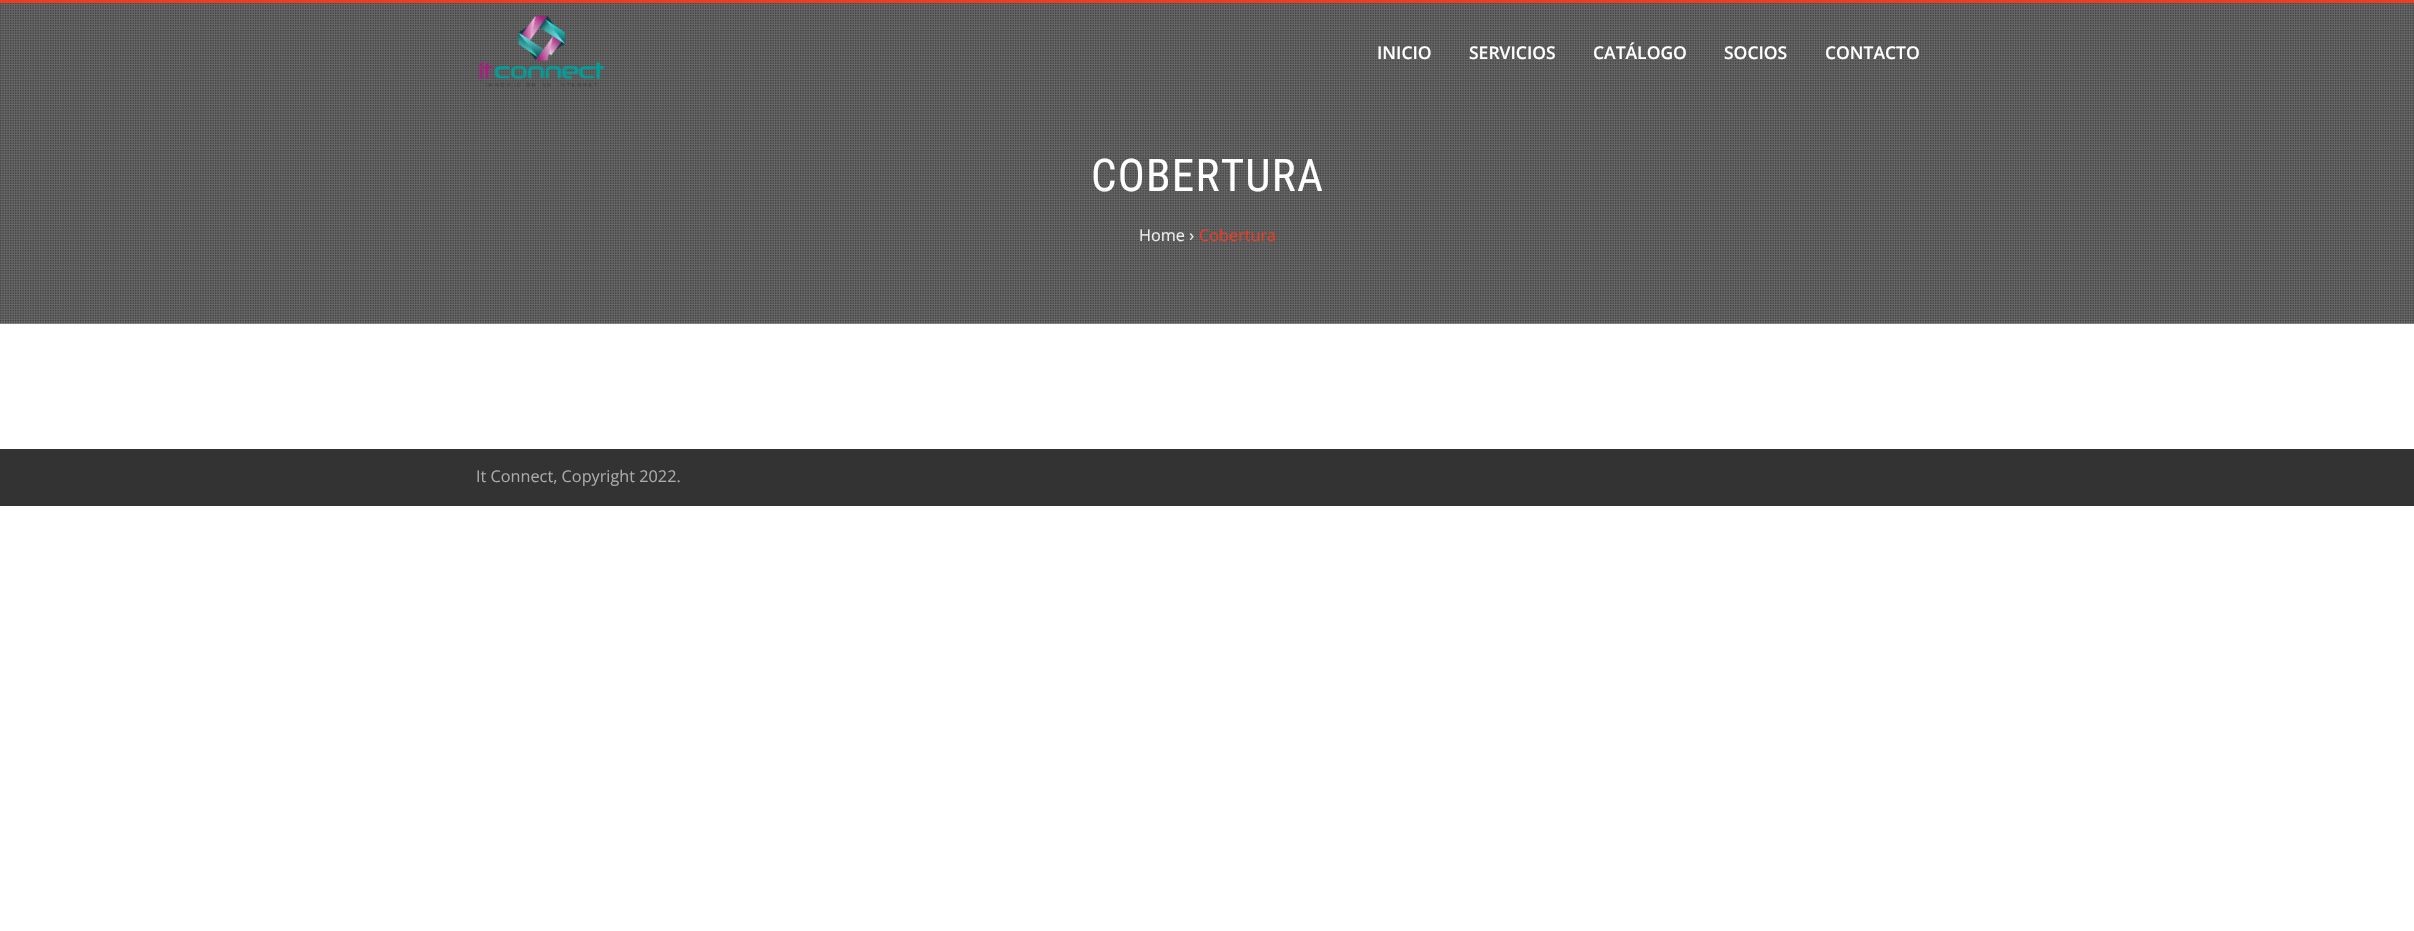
void draw(SkCanvas* canvas) {
    SkPaint paint;
    paint.setAntiAlias(true);
    auto face = [&](const char* family, int weight, float size, bool italic = false) {
        SkFontStyle style(weight, SkFontStyle::kNormal_Width,
            italic ? SkFontStyle::kItalic_Slant : SkFontStyle::kUpright_Slant);
        SkFont result(fontMgr->matchFamilyStyle(family, style), size);
        result.setSubpixel(true);
        return result;
    };
    auto write = [&](const char* s, float x, float y, const SkFont& font, SkColor color) {
        SkPaint ink(SkColor4f::FromColor(color));
        ink.setAntiAlias(true);
        canvas->drawString(s, x, y, font, ink);
    };
    auto writeSpaced = [&](const char* s, float x, float y, const SkFont& font, const SkPaint& ink, float letter, float word) {
        std::vector<SkGlyphID> glyphs(font.countText(s, strlen(s), SkTextEncoding::kUTF8));
        std::vector<float> xs(glyphs.size());
        font.textToGlyphs(s, strlen(s), SkTextEncoding::kUTF8, glyphs);
        font.getXPos(glyphs, xs, x);
        float extra = 0;
        for (size_t i = 0; i < glyphs.size(); i++) {
            xs[i] += extra;
            extra += letter + word * (glyphs[i] == font.unicharToGlyph(' '));
        }
        canvas->drawTextBlob(SkTextBlob::MakeFromPosHGlyphs(glyphs, xs, y, font), 0, 0, ink);
    };
    auto block = [&](float x, float y, float w, float h, SkColor color) {
        SkPaint ink(SkColor4f::FromColor(color));
        ink.setAntiAlias(true);
        canvas->drawRect(SkRect::MakeXYWH(x, y, w, h), ink);
    };
    auto paste = [&](const char* path, float x, float y, float w, float h) {
        auto image = SkImages::DeferredFromEncodedData(SkData::MakeFromFileName(path));
        canvas->drawImageRect(image, SkRect::MakeXYWH(x, y, w, h), SkSamplingOptions());
    };
    canvas->clear(SK_ColorWHITE);
    block(0, 0, 2414, 3, SkColorSetRGB(238, 59, 36));
    paste("pic2.png", 0, 3, 2414, 321);
    paste("pic1.png", 479, 15, 126, 72);
    auto kFont1 = face("Open Sans", 600, 17.5f);
    write("INICIO", 1377, 59, kFont1, SK_ColorWHITE);
    write("SERVICIOS", 1469, 59, kFont1, SK_ColorWHITE);
    write("CATÁLOGO", 1593, 59, kFont1, SK_ColorWHITE);
    write("SOCIOS", 1724, 59, kFont1, SK_ColorWHITE);
    write("CONTACTO", 1825, 59, kFont1, SK_ColorWHITE);
    auto kFont2 = face("Roboto Condensed", 400, 45);
    paint.setColor(SK_ColorWHITE);
    writeSpaced("COBERTURA", 1091, 191, kFont2, paint, 1.25f, 0);
    auto kFont3 = face("Open Sans", 400, 16.25f);
    write("Home ›", 1139, 241, kFont3, SkColorSetRGB(238, 238, 238));
    write("Cobertura", 1199, 241, kFont3, SkColorSetRGB(238, 59, 36));
    block(0, 449, 2414, 57, SkColorSetRGB(51, 51, 51));
    write("It Connect, Copyright 2022.", 476, 482, kFont3, SkColorSetRGB(170, 170, 170));
}
